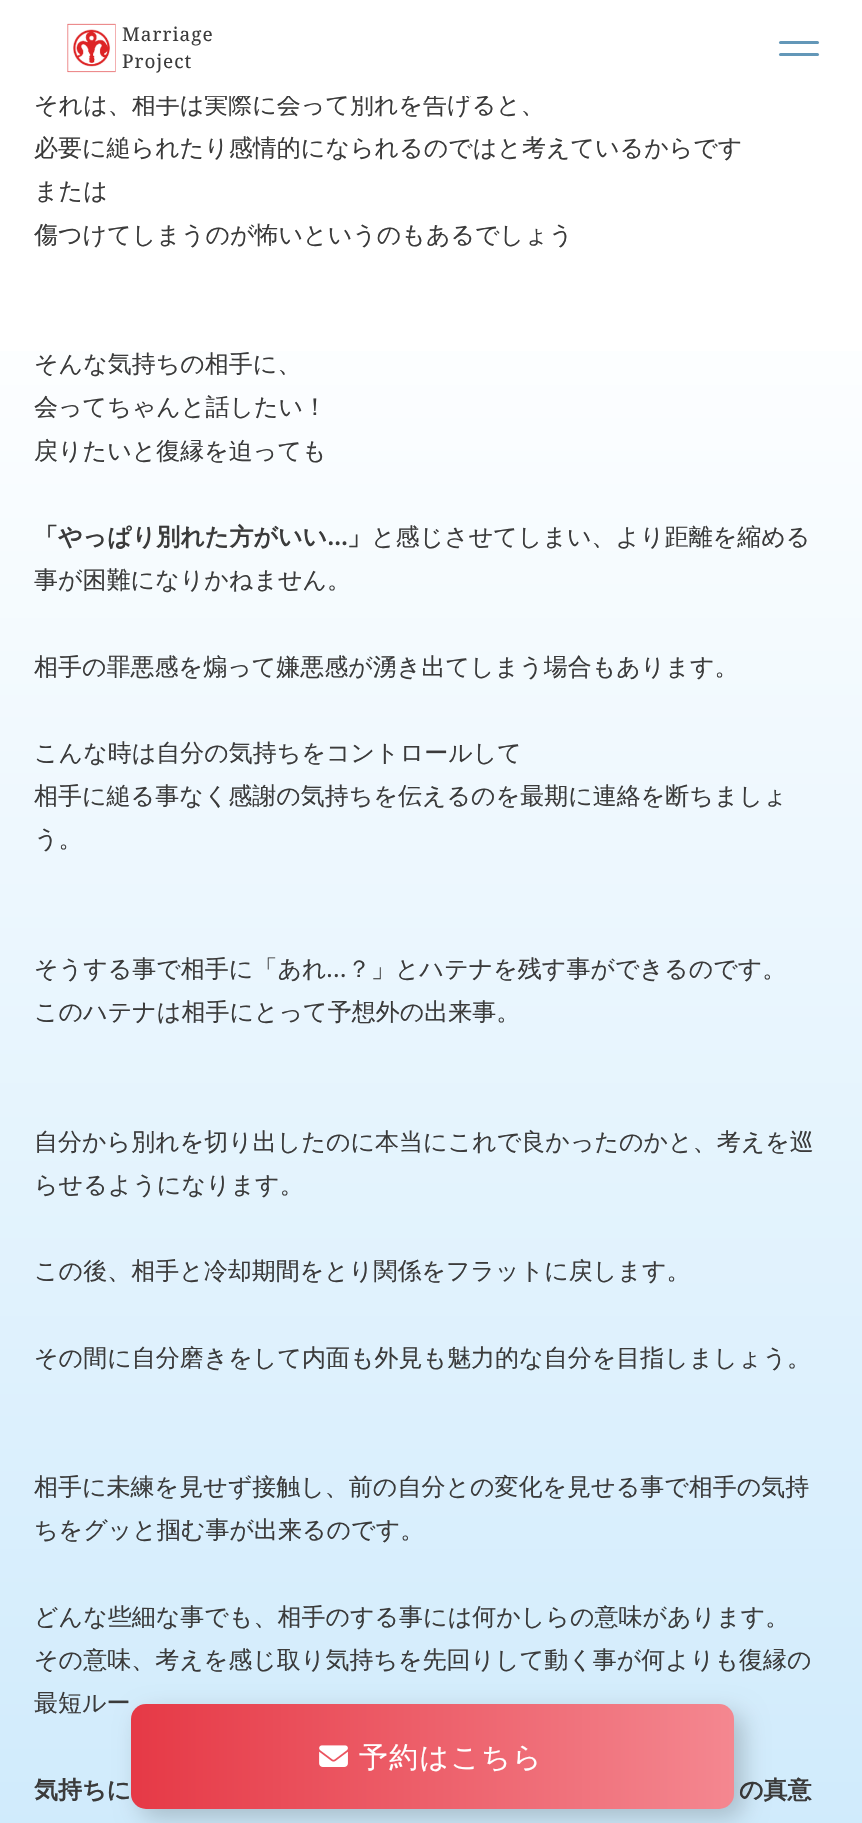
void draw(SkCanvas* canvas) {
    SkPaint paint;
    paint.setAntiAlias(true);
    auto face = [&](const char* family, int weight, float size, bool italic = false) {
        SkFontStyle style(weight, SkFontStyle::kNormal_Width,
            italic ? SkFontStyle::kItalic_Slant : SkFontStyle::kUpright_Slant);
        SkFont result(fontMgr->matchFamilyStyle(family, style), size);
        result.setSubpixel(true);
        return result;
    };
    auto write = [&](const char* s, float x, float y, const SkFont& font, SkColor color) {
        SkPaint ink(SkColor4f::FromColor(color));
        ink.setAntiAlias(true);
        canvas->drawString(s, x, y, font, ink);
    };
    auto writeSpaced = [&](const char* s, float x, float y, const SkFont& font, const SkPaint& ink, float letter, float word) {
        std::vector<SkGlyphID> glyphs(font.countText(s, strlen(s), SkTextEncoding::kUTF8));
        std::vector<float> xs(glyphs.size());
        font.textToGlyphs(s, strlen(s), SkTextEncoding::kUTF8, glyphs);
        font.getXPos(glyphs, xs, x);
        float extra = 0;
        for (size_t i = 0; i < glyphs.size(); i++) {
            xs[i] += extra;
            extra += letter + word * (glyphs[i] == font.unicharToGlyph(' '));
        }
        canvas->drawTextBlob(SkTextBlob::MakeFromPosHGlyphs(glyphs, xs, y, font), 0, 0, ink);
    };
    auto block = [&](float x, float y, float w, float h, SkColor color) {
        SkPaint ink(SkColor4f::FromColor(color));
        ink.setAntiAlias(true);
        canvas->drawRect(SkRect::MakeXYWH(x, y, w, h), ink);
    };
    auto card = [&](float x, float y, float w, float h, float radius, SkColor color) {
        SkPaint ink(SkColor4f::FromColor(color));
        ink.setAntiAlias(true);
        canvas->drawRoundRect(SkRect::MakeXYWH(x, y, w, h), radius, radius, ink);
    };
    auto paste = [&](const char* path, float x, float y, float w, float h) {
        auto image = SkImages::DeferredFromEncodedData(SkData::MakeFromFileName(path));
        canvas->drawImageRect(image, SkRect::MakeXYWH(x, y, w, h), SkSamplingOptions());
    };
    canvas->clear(SK_ColorWHITE);
    auto kFont1 = face("WenQuanYi Zen Hei", 500, 24);
    write("それは、相手は実際に会って別れを告げると、", 34, 113, kFont1, SkColorSetRGB(59, 59, 59));
    block(49, 92, 438, 4, SK_ColorWHITE);
    paste("pic1.png", 67, 23, 49, 50);
    auto kFont2 = face("Noto Serif", 400, 19);
    paint.setColor(SkColorSetRGB(59, 59, 59));
    writeSpaced("Marriage", 122, 41, kFont2, paint, 1, 0);
    writeSpaced("Project", 122, 68, kFont2, paint, 1, 0);
    card(779, 41, 40, 3, 1.5f, SkColorSetRGB(99, 151, 184));
    card(779, 53, 40, 3, 1.5f, SkColorSetRGB(99, 151, 184));
    {
        const SkColor colors[] = {SK_ColorWHITE, SK_ColorWHITE, SkColorSetRGB(192, 228, 251)};
        const float stops[] = {0, 0.4f, 1};
        const SkPoint ends[] = {{431, -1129}, {431, 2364}};
        paint.setShader(SkGradientShader::MakeLinear(ends, colors, stops, 3, SkTileMode::kClamp));
        paint.setAlpha(255);
    }
    canvas->drawRect(SkRect::MakeXYWH(0, 351, 862, 1472), paint);
    write("必要に縋られたり感情的になられるのではと考えているからです", 34, 156, kFont1, SkColorSetRGB(59, 59, 59));
    write("または", 34, 199, kFont1, SkColorSetRGB(59, 59, 59));
    write("傷つけてしまうのが怖いというのもあるでしょう", 34, 243, kFont1, SkColorSetRGB(59, 59, 59));
    write("そんな気持ちの相手に、", 34, 372, kFont1, SkColorSetRGB(59, 59, 59));
    write("会ってちゃんと話したい！", 34, 415, kFont1, SkColorSetRGB(59, 59, 59));
    write("戻りたいと復縁を迫っても", 34, 459, kFont1, SkColorSetRGB(59, 59, 59));
    auto kFont3 = face("WenQuanYi Zen Hei", 700, 24);
    write("「やっぱり別れた方がいい", 34, 545, kFont3, SkColorSetRGB(59, 59, 59));
    auto kFont4 = face("Noto Serif", 700, 24);
    write("…", 327, 545, kFont4, SkColorSetRGB(59, 59, 59));
    write("」", 347, 545, kFont3, SkColorSetRGB(59, 59, 59));
    write("と感じさせてしまい、より距離を縮める", 371, 545, kFont1, SkColorSetRGB(59, 59, 59));
    write("事が困難になりかねません。", 34, 588, kFont1, SkColorSetRGB(59, 59, 59));
    write("相手の罪悪感を煽って嫌悪感が湧き出てしまう場合もあります。", 34, 675, kFont1, SkColorSetRGB(59, 59, 59));
    write("こんな時は自分の気持ちをコントロールして", 34, 761, kFont1, SkColorSetRGB(59, 59, 59));
    write("相手に縋る事なく感謝の気持ちを伝えるのを最期に連絡を断ちましょ", 34, 804, kFont1, SkColorSetRGB(59, 59, 59));
    write("う。", 34, 847, kFont1, SkColorSetRGB(59, 59, 59));
    write("そうする事で相手に「あれ", 34, 977, kFont1, SkColorSetRGB(59, 59, 59));
    auto kFont5 = face("Noto Serif", 400, 24);
    write("…", 326, 977, kFont5, SkColorSetRGB(59, 59, 59));
    write("？」とハテナを残す事ができるのです。", 347, 977, kFont1, SkColorSetRGB(59, 59, 59));
    write("このハテナは相手にとって予想外の出来事。", 34, 1020, kFont1, SkColorSetRGB(59, 59, 59));
    write("自分から別れを切り出したのに本当にこれで良かったのかと、考えを巡", 34, 1150, kFont1, SkColorSetRGB(59, 59, 59));
    write("らせるようになります。", 34, 1193, kFont1, SkColorSetRGB(59, 59, 59));
    write("この後、相手と冷却期間をとり関係をフラットに戻します。", 34, 1279, kFont1, SkColorSetRGB(59, 59, 59));
    write("その間に自分磨きをして内面も外見も魅力的な自分を目指しましょう。", 34, 1366, kFont1, SkColorSetRGB(59, 59, 59));
    write("相手に未練を見せず接触し、前の自分との変化を見せる事で相手の気持", 34, 1495, kFont1, SkColorSetRGB(59, 59, 59));
    write("ちをグッと掴む事が出来るのです。", 34, 1538, kFont1, SkColorSetRGB(59, 59, 59));
    write("どんな些細な事でも、相手のする事には何かしらの意味があります。", 34, 1625, kFont1, SkColorSetRGB(59, 59, 59));
    write("その意味、考えを感じ取り気持ちを先回りして動く事が何よりも復縁の", 34, 1668, kFont1, SkColorSetRGB(59, 59, 59));
    write("最短ルー", 34, 1711, kFont1, SkColorSetRGB(59, 59, 59));
    write("気持ちに", 34, 1798, kFont3, SkColorSetRGB(59, 59, 59));
    write("の真意", 739, 1798, kFont3, SkColorSetRGB(59, 59, 59));
    paint.setShader(nullptr);
    paint.setColor(SkColorSetARGB(51, 0, 0, 0));
    paint.setMaskFilter(SkMaskFilter::MakeBlur(kNormal_SkBlurStyle, 12));
    canvas->drawRoundRect(SkRect::MakeXYWH(140, 1713, 603, 105), 15, 15, paint);
    paint.setMaskFilter(nullptr);
    {
        const SkColor colors[] = {SkColorSetRGB(230, 57, 70), SkColorSetRGB(244, 135, 144)};
        const float stops[] = {0, 1};
        const SkPoint ends[] = {{130, 1757}, {733, 1757}};
        paint.setShader(SkGradientShader::MakeLinear(ends, colors, stops, 2, SkTileMode::kClamp));
        paint.setAlpha(255);
    }
    canvas->drawRoundRect(SkRect::MakeXYWH(131, 1704, 603, 105), 15, 15, paint);
    paste("pic2.png", 319, 1745, 29, 22);
    auto kFont6 = face("WenQuanYi Zen Hei", 500, 28.75f);
    paint.setShader(nullptr);
    paint.setColor(SK_ColorWHITE);
    writeSpaced("予約はこちら", 359, 1767, kFont6, paint, 1.5f, 0);
}
